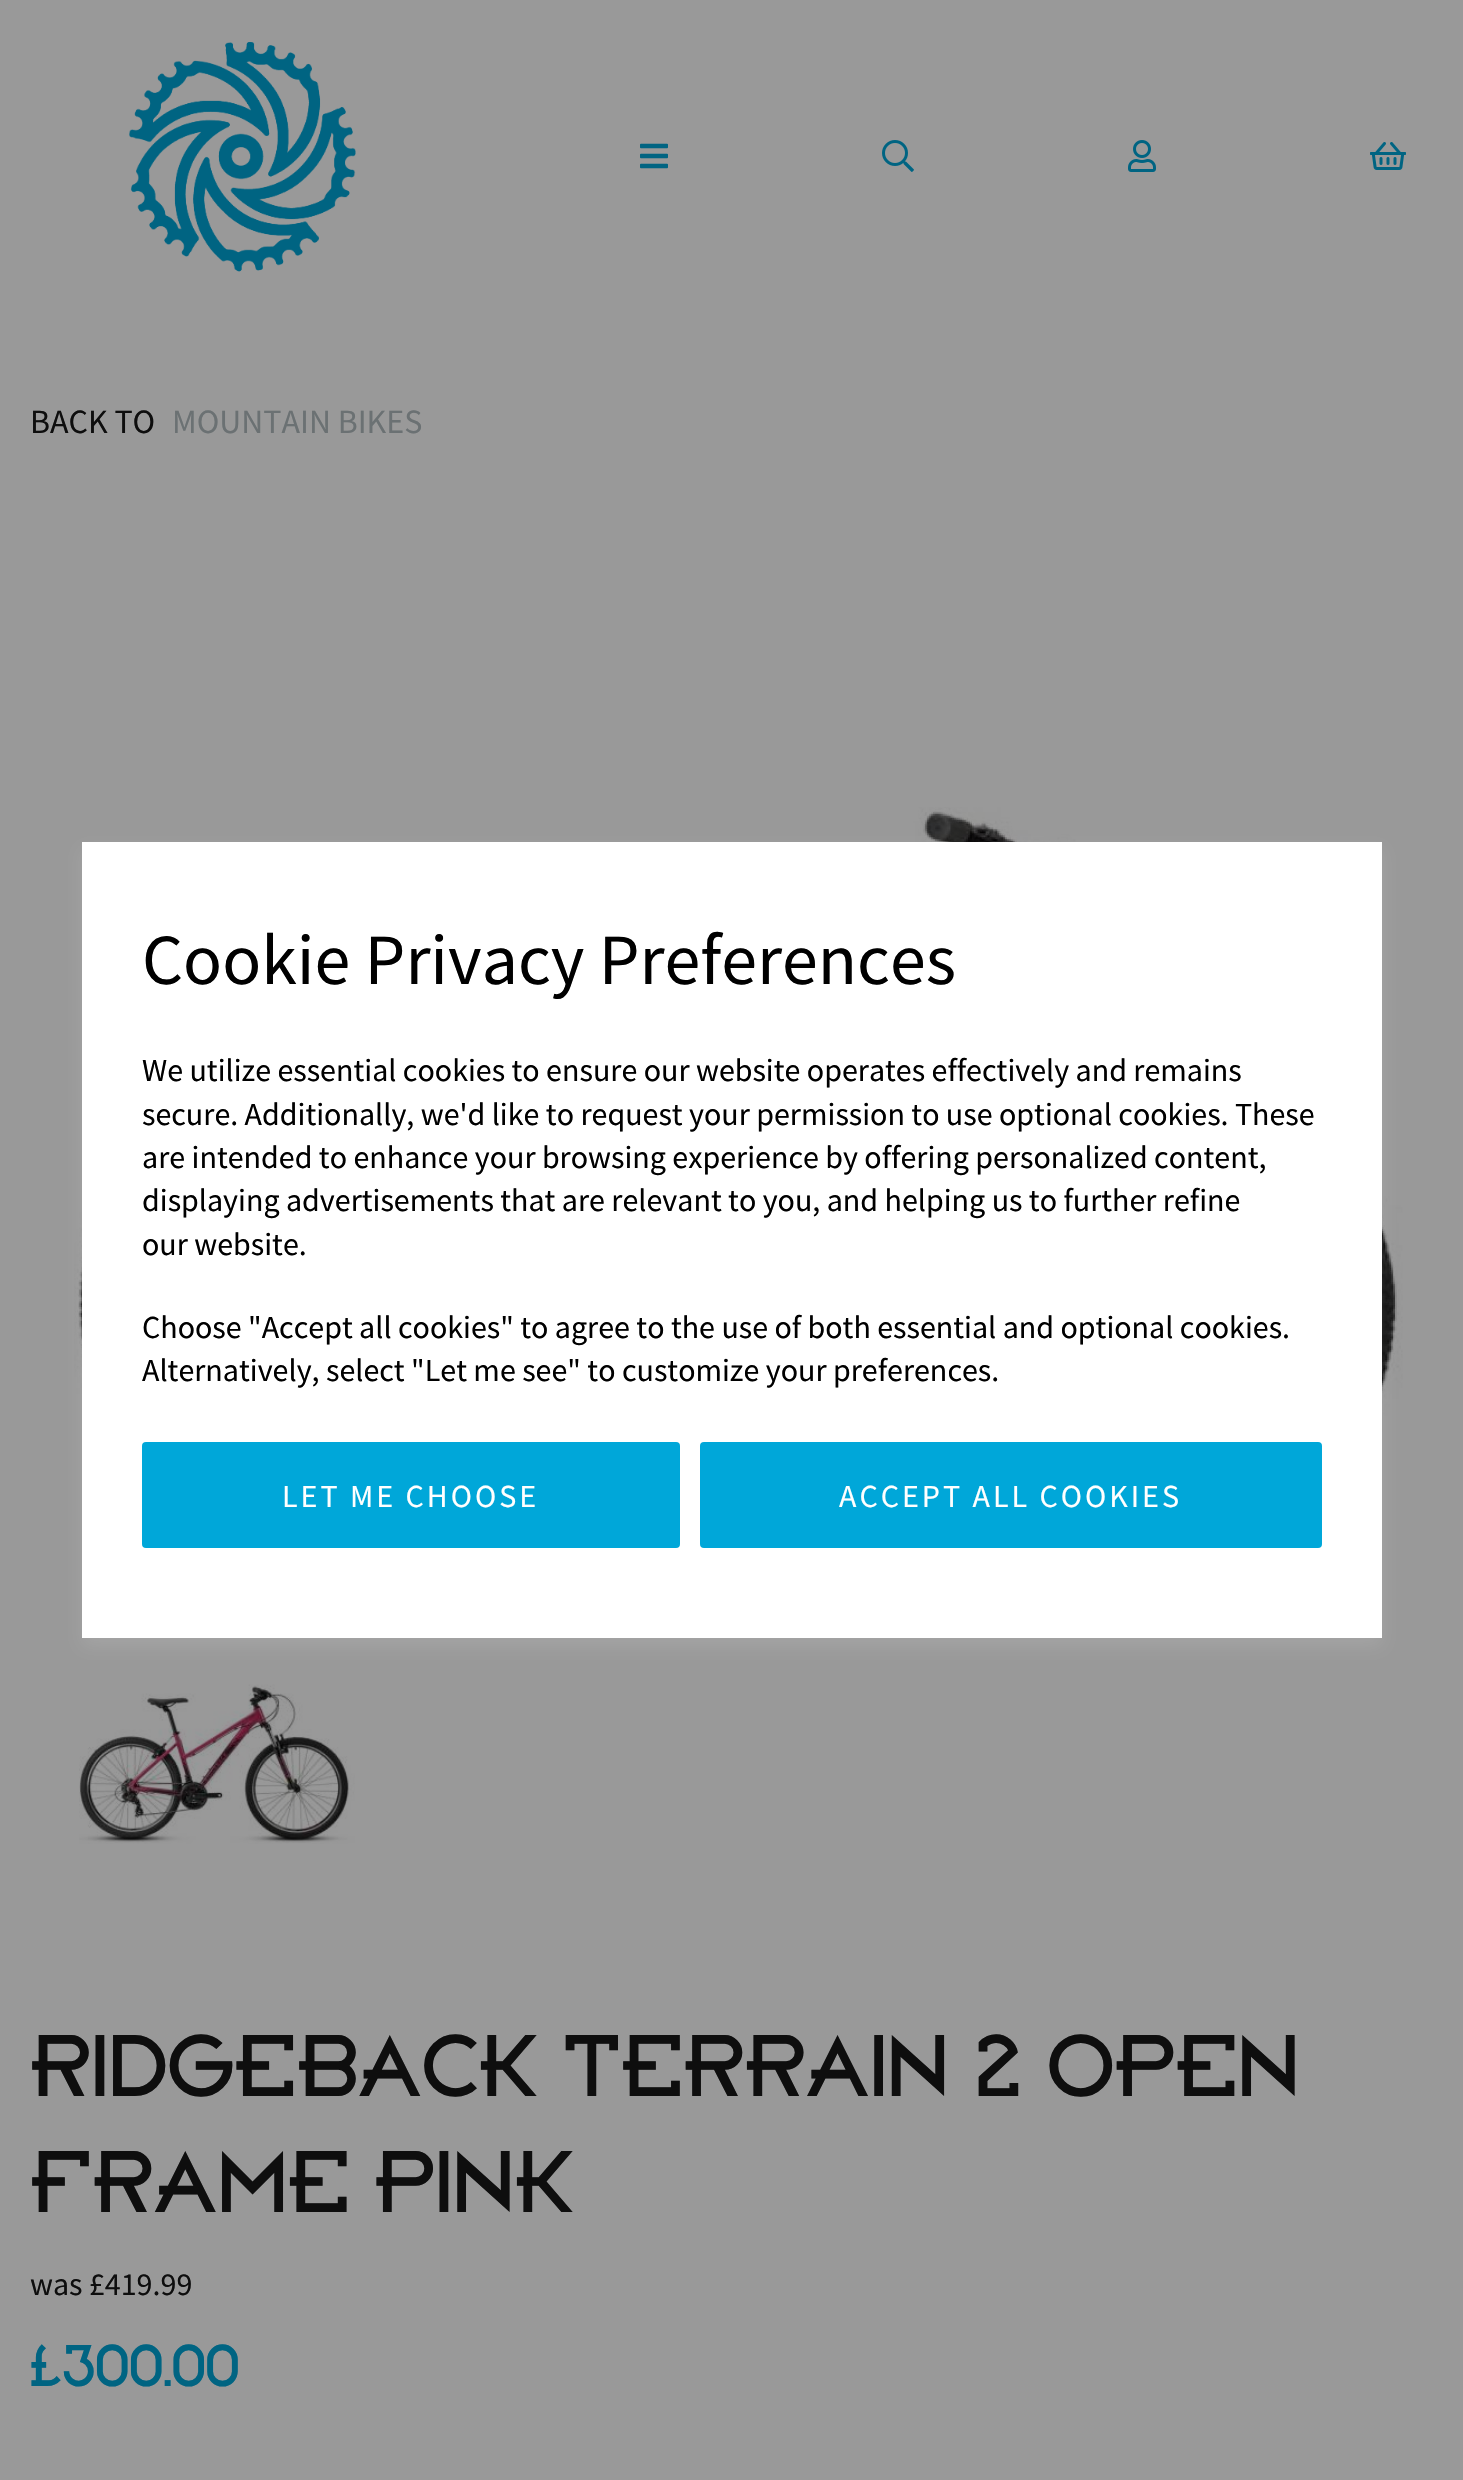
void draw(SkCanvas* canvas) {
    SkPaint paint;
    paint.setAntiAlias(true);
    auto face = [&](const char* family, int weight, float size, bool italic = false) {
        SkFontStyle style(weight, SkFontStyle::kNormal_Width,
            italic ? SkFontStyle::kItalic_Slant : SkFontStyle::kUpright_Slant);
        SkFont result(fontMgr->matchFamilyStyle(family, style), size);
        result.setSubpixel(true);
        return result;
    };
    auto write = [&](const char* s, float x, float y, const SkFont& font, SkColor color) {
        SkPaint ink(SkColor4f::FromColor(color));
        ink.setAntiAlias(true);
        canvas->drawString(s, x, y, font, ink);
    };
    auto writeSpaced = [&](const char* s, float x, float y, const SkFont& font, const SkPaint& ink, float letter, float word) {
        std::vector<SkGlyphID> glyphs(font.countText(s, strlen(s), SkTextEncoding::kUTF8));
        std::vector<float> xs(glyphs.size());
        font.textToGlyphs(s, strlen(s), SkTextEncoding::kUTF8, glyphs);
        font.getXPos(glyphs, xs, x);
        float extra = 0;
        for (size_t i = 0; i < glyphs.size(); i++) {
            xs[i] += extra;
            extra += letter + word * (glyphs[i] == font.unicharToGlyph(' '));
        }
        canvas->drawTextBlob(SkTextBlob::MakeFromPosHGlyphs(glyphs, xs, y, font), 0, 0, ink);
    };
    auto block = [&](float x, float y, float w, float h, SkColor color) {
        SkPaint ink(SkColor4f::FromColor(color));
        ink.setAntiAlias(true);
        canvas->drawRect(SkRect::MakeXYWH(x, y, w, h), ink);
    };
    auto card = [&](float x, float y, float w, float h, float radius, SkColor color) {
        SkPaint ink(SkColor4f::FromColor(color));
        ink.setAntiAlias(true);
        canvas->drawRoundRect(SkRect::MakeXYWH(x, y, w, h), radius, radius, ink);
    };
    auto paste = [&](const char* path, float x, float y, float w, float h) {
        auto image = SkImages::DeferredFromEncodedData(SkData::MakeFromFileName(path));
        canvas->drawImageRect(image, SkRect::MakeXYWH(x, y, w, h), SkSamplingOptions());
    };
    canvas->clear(SkColorSetRGB(153, 153, 153));
    paste("pic1.png", 129, 42, 227, 230);
    paste("pic2.png", 640, 143, 28, 26);
    paste("pic3.png", 882, 140, 32, 32);
    paste("pic4.png", 1128, 140, 28, 32);
    paste("pic5.png", 1370, 142, 36, 28);
    auto kFont1 = face("Source Sans Pro", 400, 34);
    write("BACK TO", 30, 433, kFont1, SkColorSetRGB(14, 14, 14));
    write("MOUNTAIN BIKES", 172, 433, kFont1, SkColorSetRGB(107, 113, 115));
    paste("pic6.png", 74, 807, 1329, 711);
    paste("pic7.png", 79, 1684, 276, 160);
    auto kFont2 = face("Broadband", 400, 86);
    write("RIDGEBACK TERRAIN 2 OPEN", 30, 2096, kFont2, SkColorSetRGB(14, 14, 14));
    write("FRAME PINK", 30, 2212, kFont2, SkColorSetRGB(14, 14, 14));
    auto kFont3 = face("Source Sans Pro", 400, 32);
    write("was £419.99", 30, 2295, kFont3, SkColorSetRGB(14, 14, 14));
    auto kFont4 = face("Broadband", 400, 58);
    write("£300.00", 30, 2386, kFont4, SkColorSetRGB(0, 100, 130));
    paint.setColor(SkColorSetARGB(26, 255, 255, 255));
    paint.setMaskFilter(SkMaskFilter::MakeBlur(kNormal_SkBlurStyle, 8));
    canvas->drawRect(SkRect::MakeXYWH(82, 850, 1300, 796), paint);
    paint.setMaskFilter(nullptr);
    block(82, 842, 1300, 796, SK_ColorWHITE);
    auto kFont5 = face("Source Sans Pro", 400, 72);
    write("Cookie Privacy Preferences", 142, 984, kFont5, SK_ColorBLACK);
    write("We utilize essential cookies to ensure our website operates effectively and remains", 142, 1081, kFont3, SK_ColorBLACK);
    write("secure. Additionally, we'd like to request your permission to use optional cookies. These", 142, 1125, kFont3, SK_ColorBLACK);
    write("are intended to enhance your browsing experience by offering personalized content,", 142, 1168, kFont3, SK_ColorBLACK);
    write("displaying advertisements that are relevant to you, and helping us to further refine", 142, 1211, kFont3, SK_ColorBLACK);
    write("our website.", 142, 1255, kFont3, SK_ColorBLACK);
    write("Choose \"Accept all cookies\" to agree to the use of both essential and optional cookies.", 142, 1338, kFont3, SK_ColorBLACK);
    write("Alternatively, select \"Let me see\" to customize your preferences.", 142, 1381, kFont3, SK_ColorBLACK);
    card(142, 1442, 538, 106, 4, SkColorSetRGB(0, 167, 217));
    paint.setColor(SK_ColorWHITE);
    writeSpaced("LET ME CHOOSE", 282, 1507, kFont3, paint, 3, 0);
    card(700, 1442, 622, 106, 4, SkColorSetRGB(0, 167, 217));
    writeSpaced("ACCEPT ALL COOKIES", 839, 1507, kFont3, paint, 3, 0);
}
